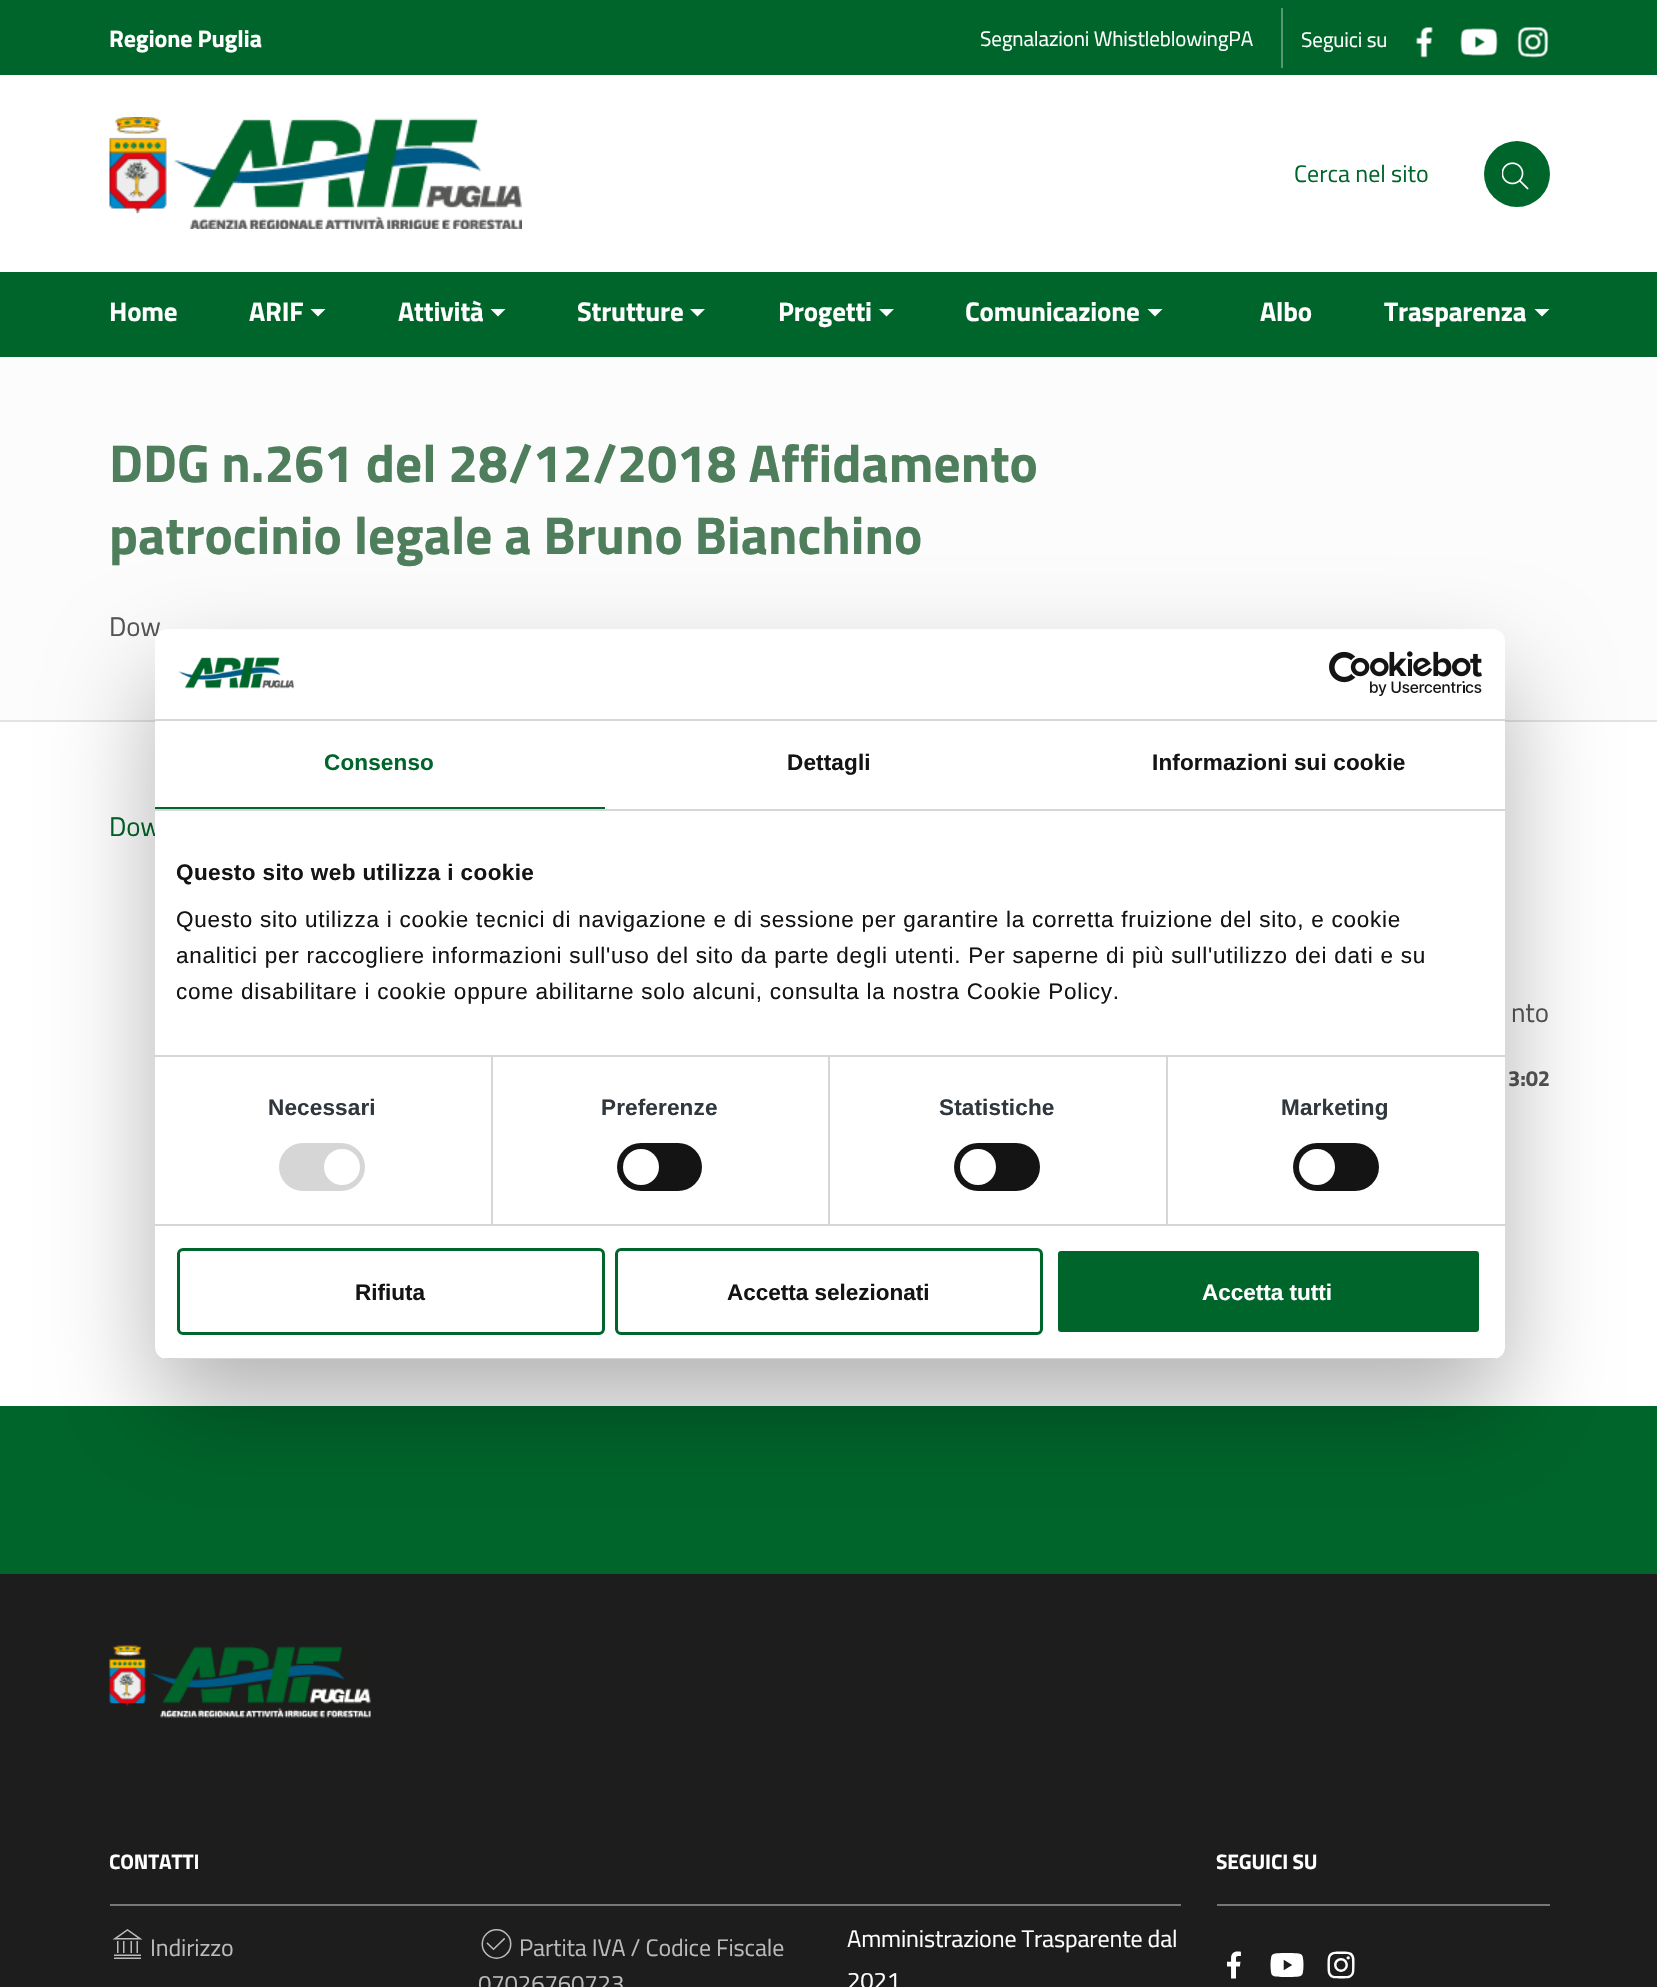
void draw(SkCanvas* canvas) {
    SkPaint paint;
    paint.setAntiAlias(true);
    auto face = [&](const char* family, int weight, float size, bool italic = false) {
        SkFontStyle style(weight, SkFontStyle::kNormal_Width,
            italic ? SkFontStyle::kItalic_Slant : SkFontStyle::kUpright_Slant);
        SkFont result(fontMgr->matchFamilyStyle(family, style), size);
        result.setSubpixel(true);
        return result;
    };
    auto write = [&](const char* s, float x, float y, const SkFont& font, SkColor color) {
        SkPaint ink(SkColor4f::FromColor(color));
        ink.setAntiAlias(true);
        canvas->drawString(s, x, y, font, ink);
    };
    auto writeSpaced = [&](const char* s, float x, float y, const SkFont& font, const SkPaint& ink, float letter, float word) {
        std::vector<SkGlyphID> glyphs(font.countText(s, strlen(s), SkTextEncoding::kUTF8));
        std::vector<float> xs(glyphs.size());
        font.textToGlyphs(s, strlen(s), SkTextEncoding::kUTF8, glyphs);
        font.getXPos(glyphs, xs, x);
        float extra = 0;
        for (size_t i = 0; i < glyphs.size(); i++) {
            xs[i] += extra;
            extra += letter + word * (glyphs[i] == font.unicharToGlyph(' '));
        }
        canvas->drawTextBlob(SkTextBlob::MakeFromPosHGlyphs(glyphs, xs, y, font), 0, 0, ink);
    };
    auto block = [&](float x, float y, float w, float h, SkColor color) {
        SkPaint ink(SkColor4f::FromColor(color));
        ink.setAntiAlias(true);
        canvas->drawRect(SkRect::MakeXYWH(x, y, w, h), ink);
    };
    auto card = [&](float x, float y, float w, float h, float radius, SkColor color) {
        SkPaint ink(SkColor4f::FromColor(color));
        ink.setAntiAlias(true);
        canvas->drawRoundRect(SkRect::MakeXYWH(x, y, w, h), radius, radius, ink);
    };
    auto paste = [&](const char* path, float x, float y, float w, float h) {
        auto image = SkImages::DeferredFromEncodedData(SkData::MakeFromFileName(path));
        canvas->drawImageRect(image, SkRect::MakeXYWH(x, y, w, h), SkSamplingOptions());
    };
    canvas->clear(SK_ColorWHITE);
    block(0, 0, 1657, 357, SkColorSetRGB(0, 101, 42));
    auto kFont1 = face("Titillium Web", 700, 24);
    paint.setColor(SK_ColorWHITE);
    writeSpaced("Regione Puglia", 109, 47, kFont1, paint, -0.15f, 0);
    block(1281, 8, 2, 60, SkColorSetRGB(85, 152, 113));
    auto kFont2 = face("Titillium Web", 400, 21);
    writeSpaced("Segnalazioni WhistleblowingPA", 980, 46, kFont2, paint, -0.15f, 0);
    writeSpaced("Seguici su", 1301, 47, kFont2, paint, -0.15f, 0);
    paste("pic1.png", 1416, 27, 17, 31);
    paste("pic2.png", 1460, 28, 38, 28);
    paste("pic3.png", 1517, 27, 32, 31);
    block(0, 75, 1657, 197, SK_ColorWHITE);
    paste("pic4.png", 109, 117, 413, 112);
    auto kFont3 = face("Titillium Web", 400, 24);
    write("Cerca nel sito", 1294, 182, kFont3, SkColorSetRGB(0, 101, 42));
    paint.setColor(SkColorSetRGB(0, 101, 42));
    canvas->drawCircle(1517, 174, 33, paint);
    paste("pic5.png", 1502, 162, 27, 28);
    auto kFont4 = face("Titillium Web", 700, 27);
    paint.setColor(SK_ColorWHITE);
    writeSpaced("Home", 109, 321, kFont4, paint, -0.15f, 0);
    writeSpaced("ARIF", 249, 321, kFont4, paint, -0.15f, 0);
    canvas->drawPath(SkPathBuilder().moveTo(310.5f, 309).lineTo(325.5f, 309).lineTo(318, 316.5f).close().detach(), paint);
    writeSpaced("Attività", 398, 321, kFont4, paint, -0.15f, 0);
    canvas->drawPath(SkPathBuilder().moveTo(490.5f, 309).lineTo(505.5f, 309).lineTo(498, 316.5f).close().detach(), paint);
    writeSpaced("Strutture", 577, 321, kFont4, paint, -0.15f, 0);
    canvas->drawPath(SkPathBuilder().moveTo(690, 309).lineTo(705, 309).lineTo(697.5f, 316.5f).close().detach(), paint);
    writeSpaced("Progetti", 778, 321, kFont4, paint, -0.15f, 0);
    canvas->drawPath(SkPathBuilder().moveTo(879, 309).lineTo(894, 309).lineTo(886.5f, 316.5f).close().detach(), paint);
    writeSpaced("Comunicazione", 965, 321, kFont4, paint, -0.15f, 0);
    canvas->drawPath(SkPathBuilder().moveTo(1147.5f, 309).lineTo(1162.5f, 309).lineTo(1155, 316.5f).close().detach(), paint);
    writeSpaced("Albo", 1260, 321, kFont4, paint, -0.15f, 0);
    writeSpaced("Trasparenza", 1384, 321, kFont4, paint, -0.15f, 0);
    canvas->drawPath(SkPathBuilder().moveTo(1534.5f, 309).lineTo(1549.5f, 309).lineTo(1542, 316.5f).close().detach(), paint);
    block(0, 357, 1657, 363, SkColorSetRGB(252, 252, 252));
    block(0, 720, 1657, 2, SkColorSetRGB(227, 227, 227));
    auto kFont5 = face("Titillium Web", 700, 53.3f);
    write("DDG n.261 del 28/12/2018 Affidamento", 109, 482, kFont5, SkColorSetRGB(78, 126, 91));
    write("patrocinio legale a Bruno Bianchino", 109, 554, kFont5, SkColorSetRGB(78, 126, 91));
    auto kFont6 = face("Titillium Web", 400, 27);
    paint.setColor(SkColorSetRGB(85, 85, 85));
    writeSpaced("Dow", 109, 636, kFont6, paint, -0.15f, 0);
    paint.setColor(SkColorSetRGB(0, 101, 42));
    writeSpaced("Dow", 109, 836, kFont6, paint, -0.15f, 0);
    paint.setColor(SkColorSetRGB(85, 85, 85));
    writeSpaced("nto", 1511, 1022, kFont6, paint, -0.15f, 0);
    auto kFont7 = face("Titillium Web", 700, 22);
    writeSpaced("3:02", 1508, 1086, kFont7, paint, -0.15f, 0);
    block(0, 1406, 1657, 168, SkColorSetRGB(0, 101, 42));
    block(0, 1574, 1657, 413, SkColorSetRGB(29, 29, 29));
    paste("pic6.png", 109, 1645, 262, 73);
    block(110, 1904, 1071, 2, SkColorSetRGB(119, 119, 119));
    auto kFont8 = face("Titillium Web", 700, 21);
    paint.setColor(SK_ColorWHITE);
    writeSpaced("CONTATTI", 109, 1869, kFont8, paint, -0.15f, 0);
    block(1217, 1904, 333, 2, SkColorSetRGB(119, 119, 119));
    writeSpaced("SEGUICI SU", 1216, 1869, kFont8, paint, -0.15f, 0);
    paste("pic7.png", 112, 1929, 31, 30);
    paint.setColor(SkColorSetRGB(187, 187, 187));
    writeSpaced("Indirizzo", 150, 1956, kFont3, paint, -0.15f, 0);
    paste("pic8.png", 481, 1929, 31, 30);
    writeSpaced("Partita IVA / Codice Fiscale", 519, 1956, kFont3, paint, -0.15f, 0);
    writeSpaced("07026760723", 478, 1992, kFont3, paint, -0.15f, 0);
    paint.setColor(SK_ColorWHITE);
    writeSpaced("Amministrazione Trasparente dal", 847, 1947, kFont3, paint, -0.15f, 0);
    writeSpaced("2021", 847, 1989, kFont3, paint, -0.15f, 0);
    paste("pic9.png", 1227, 1951, 14, 28);
    paste("pic10.png", 1270, 1953, 34, 24);
    paste("pic11.png", 1327, 1951, 28, 28);
    paint.setColor(SkColorSetARGB(77, 0, 0, 0));
    paint.setMaskFilter(SkMaskFilter::MakeBlur(kNormal_SkBlurStyle, 51));
    canvas->drawRoundRect(SkRect::MakeXYWH(155, 677, 1350, 730), 12, 12, paint);
    paint.setMaskFilter(nullptr);
    card(155, 629, 1350, 730, 12, SK_ColorWHITE);
    block(155, 719, 1350, 2, SkColorSetRGB(214, 214, 214));
    paste("pic12.png", 178, 657, 116, 32);
    paste("pic13.png", 1329, 651, 153, 45);
    block(155, 809, 1350, 2, SkColorSetRGB(214, 214, 214));
    block(155, 807, 450, 2, SkColorSetRGB(0, 101, 42));
    auto kFont9 = face("Liberation Sans", 700, 22.5f);
    paint.setColor(SkColorSetRGB(0, 101, 42));
    writeSpaced("Consenso", 324, 770, kFont9, paint, 0.15f, 0);
    paint.setColor(SkColorSetRGB(20, 20, 20));
    writeSpaced("Dettagli", 787, 770, kFont9, paint, 0.15f, 0);
    writeSpaced("Informazioni sui cookie", 1152, 770, kFont9, paint, 0.15f, 0);
    block(491, 1056, 2, 168, SkColorSetRGB(214, 214, 214));
    block(828, 1056, 2, 168, SkColorSetRGB(214, 214, 214));
    block(1166, 1056, 2, 168, SkColorSetRGB(214, 214, 214));
    block(155, 1055, 1350, 2, SkColorSetRGB(214, 214, 214));
    writeSpaced("Questo sito web utilizza i cookie", 176, 880, kFont9, paint, 0.4f, 0);
    auto kFont10 = face("Liberation Sans", 400, 22.5f);
    writeSpaced("Questo sito utilizza i cookie tecnici di navigazione e di sessione per garantire la corretta fruizione del sito, e cookie", 176, 927, kFont10, paint, 0.75f, 0);
    writeSpaced("analitici per raccogliere informazioni sull'uso del sito da parte degli utenti. Per saperne di più sull'utilizzo dei dati e su", 176, 963, kFont10, paint, 0.75f, 0);
    writeSpaced("come disabilitare i cookie oppure abilitarne solo alcuni, consulta la nostra Cookie Policy.", 176, 999, kFont10, paint, 0.75f, 0);
    block(155, 1224, 1350, 2, SkColorSetRGB(214, 214, 214));
    paint.setColor(SkColorSetRGB(48, 55, 61));
    writeSpaced("Necessari", 268, 1115, kFont9, paint, 0.15f, 0);
    card(279, 1143, 86, 48, 24, SkColorSetRGB(214, 214, 214));
    paint.setColor(SK_ColorWHITE);
    canvas->drawCircle(342, 1167, 18, paint);
    paint.setColor(SkColorSetRGB(48, 55, 61));
    writeSpaced("Preferenze", 601, 1115, kFont9, paint, 0.15f, 0);
    card(617, 1143, 85, 48, 24, SkColorSetRGB(20, 20, 20));
    paint.setColor(SK_ColorWHITE);
    canvas->drawCircle(641, 1167, 18, paint);
    paint.setColor(SkColorSetRGB(48, 55, 61));
    writeSpaced("Statistiche", 939, 1115, kFont9, paint, 0.15f, 0);
    card(954, 1143, 86, 48, 24, SkColorSetRGB(20, 20, 20));
    paint.setColor(SK_ColorWHITE);
    canvas->drawCircle(978, 1167, 18, paint);
    paint.setColor(SkColorSetRGB(48, 55, 61));
    writeSpaced("Marketing", 1281, 1115, kFont9, paint, 0.15f, 0);
    card(1293, 1143, 86, 48, 24, SkColorSetRGB(20, 20, 20));
    paint.setColor(SK_ColorWHITE);
    canvas->drawCircle(1317, 1167, 18, paint);
    canvas->save();
    canvas->clipPath(SkPathBuilder().moveTo(167, 629).lineTo(1493, 629).cubicTo(1499.5f, 629, 1505, 634.5f, 1505, 641).lineTo(1505, 1347).cubicTo(1505, 1353.5f, 1499.5f, 1359, 1493, 1359).lineTo(167, 1359).cubicTo(160.5f, 1359, 155, 1353.5f, 155, 1347).lineTo(155, 641).cubicTo(155, 634.5f, 160.5f, 629, 167, 629).close().detach(), true);
    block(155, 1358, 1350, 1, SkColorSetRGB(214, 214, 214));
    canvas->restore();
    paint.setStyle(SkPaint::kStroke_Style);
    paint.setStrokeWidth(3);
    paint.setColor(SkColorSetRGB(0, 101, 42));
    canvas->drawRoundRect(SkRect::MakeXYWH(178.5f, 1249.5f, 425, 84), 4.5f, 4.5f, paint);
    write("Rifiuta", 355, 1300, kFont9, SkColorSetRGB(20, 20, 20));
    canvas->drawRoundRect(SkRect::MakeXYWH(616.5f, 1249.5f, 425, 84), 4.5f, 4.5f, paint);
    write("Accetta selezionati", 727, 1300, kFont9, SkColorSetRGB(20, 20, 20));
    paint.setStyle(SkPaint::kFill_Style);
    canvas->drawRoundRect(SkRect::MakeXYWH(1056.5f, 1249.5f, 424, 84), 4.5f, 4.5f, paint);
    paint.setStyle(SkPaint::kStroke_Style);
    paint.setColor(SK_ColorWHITE);
    canvas->drawRoundRect(SkRect::MakeXYWH(1056.5f, 1249.5f, 424, 84), 4.5f, 4.5f, paint);
    write("Accetta tutti", 1202, 1300, kFont9, SK_ColorWHITE);
}
